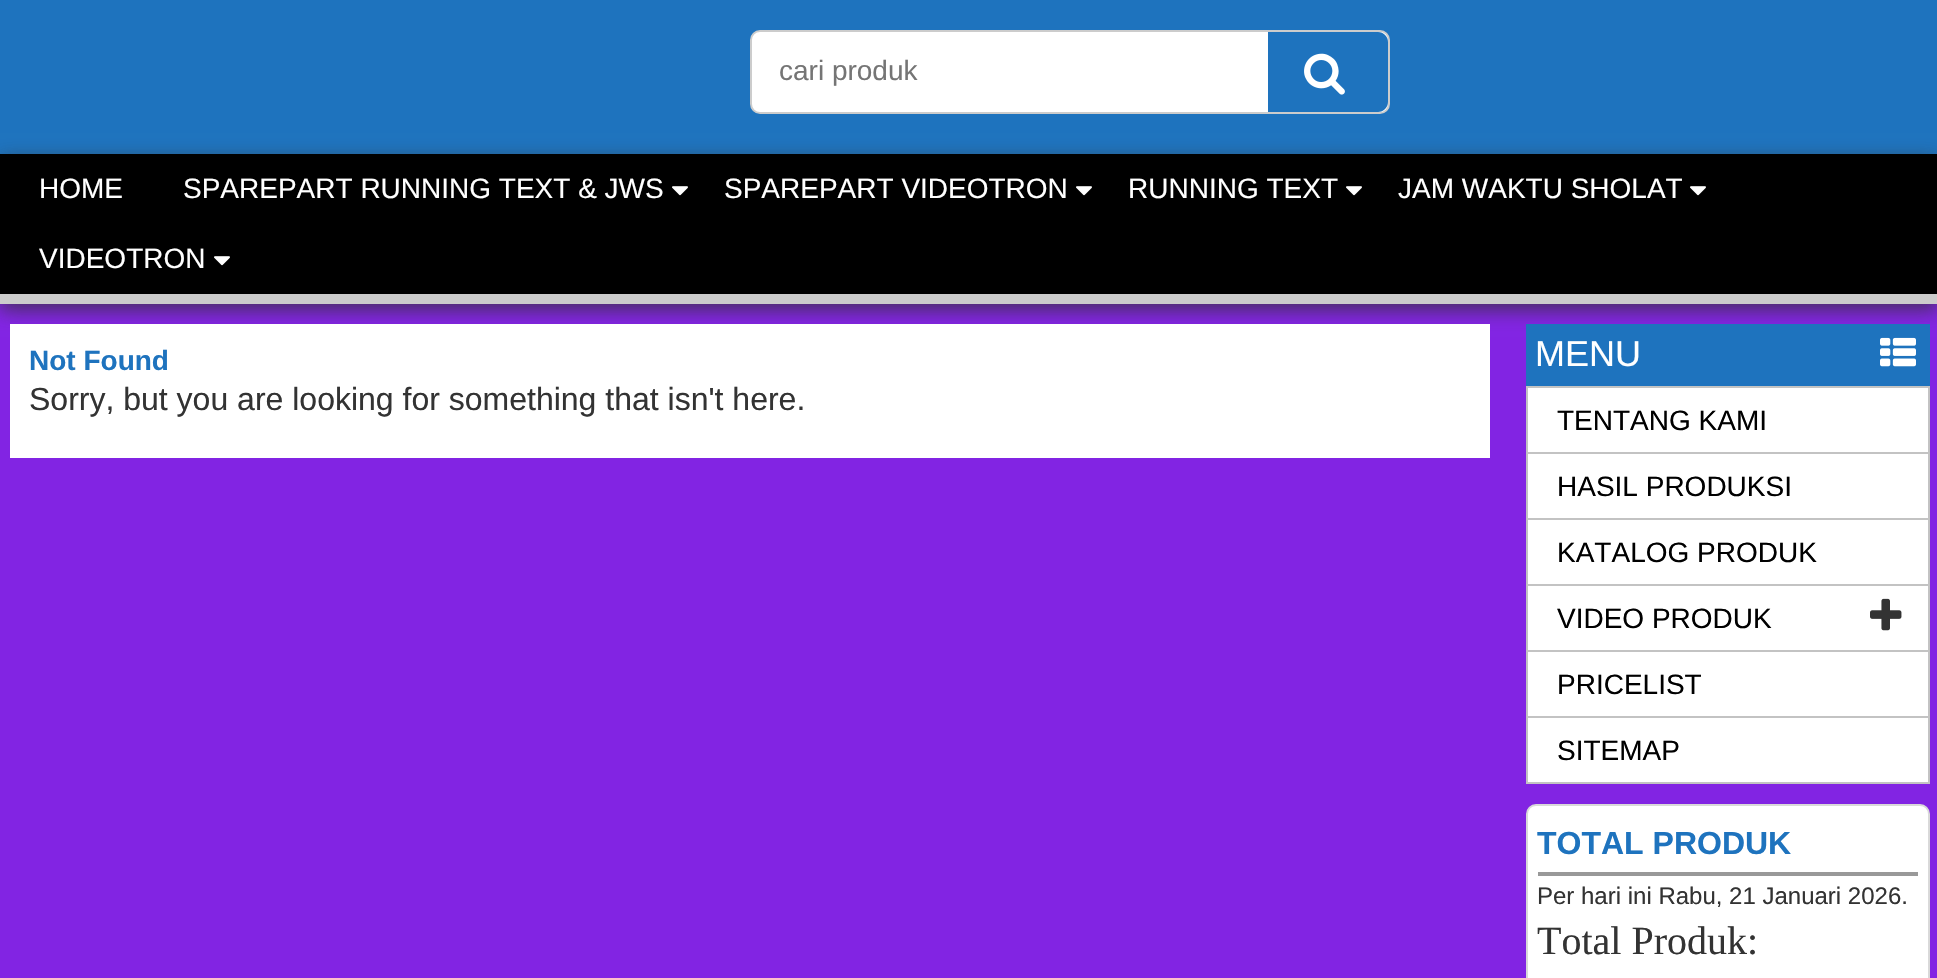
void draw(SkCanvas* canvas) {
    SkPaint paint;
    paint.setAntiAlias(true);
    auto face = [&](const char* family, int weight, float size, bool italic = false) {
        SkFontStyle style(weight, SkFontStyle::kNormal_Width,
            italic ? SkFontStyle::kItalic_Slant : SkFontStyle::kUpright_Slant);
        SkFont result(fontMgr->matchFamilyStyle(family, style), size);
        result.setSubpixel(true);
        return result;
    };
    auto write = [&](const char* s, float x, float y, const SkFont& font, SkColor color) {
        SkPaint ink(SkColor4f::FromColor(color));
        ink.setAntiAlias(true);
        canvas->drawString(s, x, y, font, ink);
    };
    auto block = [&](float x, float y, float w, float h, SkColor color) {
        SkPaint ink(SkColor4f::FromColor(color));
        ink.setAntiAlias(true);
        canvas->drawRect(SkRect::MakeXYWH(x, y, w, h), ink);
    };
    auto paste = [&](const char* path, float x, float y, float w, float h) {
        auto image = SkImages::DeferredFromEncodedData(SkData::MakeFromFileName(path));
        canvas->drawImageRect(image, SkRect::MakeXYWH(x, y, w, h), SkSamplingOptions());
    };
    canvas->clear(SkColorSetRGB(130, 36, 227));
    block(0, 0, 1937, 154, SkColorSetRGB(30, 115, 190));
    paint.setColor(SK_ColorWHITE);
    canvas->drawRoundRect(SkRect::MakeXYWH(751, 31, 638, 82), 9, 9, paint);
    paint.setStyle(SkPaint::kStroke_Style);
    paint.setStrokeWidth(2);
    paint.setColor(SkColorSetRGB(204, 204, 204));
    canvas->drawRoundRect(SkRect::MakeXYWH(751, 31, 638, 82), 9, 9, paint);
    auto kFont1 = face("Liberation Sans", 400, 28);
    write("cari produk", 779, 80, kFont1, SkColorSetRGB(117, 117, 117));
    paint.setStyle(SkPaint::kFill_Style);
    paint.setColor(SkColorSetRGB(30, 115, 190));
    canvas->drawPath(SkPathBuilder().moveTo(1268, 32).lineTo(1378, 32).cubicTo(1383.5f, 32, 1388, 36.5f, 1388, 42).lineTo(1388, 102).cubicTo(1388, 107.5f, 1383.5f, 112, 1378, 112).lineTo(1268, 112).close().detach(), paint);
    paste("pic1.png", 1304, 53, 41, 42);
    paint.setColor(SkColorSetARGB(191, 50, 50, 50));
    paint.setMaskFilter(SkMaskFilter::MakeBlur(kNormal_SkBlurStyle, 9));
    canvas->drawRect(SkRect::MakeXYWH(0, 160, 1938, 150), paint);
    paint.setMaskFilter(nullptr);
    block(0, 154, 1937, 140, SK_ColorBLACK);
    block(0, 294, 1937, 10, SkColorSetRGB(204, 204, 204));
    write("HOME", 39, 198, kFont1, SK_ColorWHITE);
    write("SPAREPART RUNNING TEXT & JWS", 183, 198, kFont1, SK_ColorWHITE);
    paste("pic2.png", 672, 186, 16, 10);
    write("SPAREPART VIDEOTRON", 724, 198, kFont1, SK_ColorWHITE);
    paste("pic2.png", 1076, 186, 16, 10);
    write("RUNNING TEXT", 1128, 198, kFont1, SK_ColorWHITE);
    paste("pic2.png", 1346, 186, 16, 10);
    write("JAM WAKTU SHOLAT", 1398, 198, kFont1, SK_ColorWHITE);
    paste("pic2.png", 1690, 186, 16, 10);
    write("VIDEOTRON", 39, 268, kFont1, SK_ColorWHITE);
    paste("pic2.png", 214, 256, 16, 10);
    block(10, 324, 1480, 134, SK_ColorWHITE);
    auto kFont2 = face("Liberation Sans", 700, 28);
    write("Not Found", 29, 370, kFont2, SkColorSetRGB(30, 115, 190));
    auto kFont3 = face("Liberation Sans", 400, 32);
    write("Sorry, but you are looking for something that isn't here.", 29, 410, kFont3, SkColorSetRGB(51, 51, 51));
    block(1526, 324, 404, 62, SkColorSetRGB(30, 115, 190));
    auto kFont4 = face("Liberation Sans", 400, 36);
    write("MENU", 1535, 366, kFont4, SK_ColorWHITE);
    paste("pic3.png", 1880, 337, 36, 30);
    block(1528, 388, 400, 394, SK_ColorWHITE);
    block(1526, 386, 404, 2, SkColorSetRGB(195, 195, 195));
    block(1928, 388, 2, 396, SkColorSetRGB(195, 195, 195));
    block(1526, 452, 404, 2, SkColorSetRGB(195, 195, 195));
    block(1526, 388, 2, 66, SkColorSetRGB(195, 195, 195));
    write("TENTANG KAMI", 1557, 430, kFont1, SK_ColorBLACK);
    block(1526, 518, 404, 2, SkColorSetRGB(195, 195, 195));
    block(1526, 454, 2, 66, SkColorSetRGB(195, 195, 195));
    write("HASIL PRODUKSI", 1557, 496, kFont1, SK_ColorBLACK);
    block(1526, 584, 404, 2, SkColorSetRGB(195, 195, 195));
    block(1526, 520, 2, 66, SkColorSetRGB(195, 195, 195));
    write("KATALOG PRODUK", 1557, 562, kFont1, SK_ColorBLACK);
    block(1526, 650, 404, 2, SkColorSetRGB(195, 195, 195));
    block(1526, 586, 2, 66, SkColorSetRGB(195, 195, 195));
    write("VIDEO PRODUK", 1557, 628, kFont1, SK_ColorBLACK);
    paste("pic4.png", 1870, 598, 32, 33);
    block(1526, 716, 404, 2, SkColorSetRGB(195, 195, 195));
    block(1526, 652, 2, 66, SkColorSetRGB(195, 195, 195));
    write("PRICELIST", 1557, 694, kFont1, SK_ColorBLACK);
    block(1526, 782, 404, 2, SkColorSetRGB(195, 195, 195));
    block(1526, 718, 2, 66, SkColorSetRGB(195, 195, 195));
    write("SITEMAP", 1557, 760, kFont1, SK_ColorBLACK);
    paint.setColor(SK_ColorWHITE);
    canvas->drawRoundRect(SkRect::MakeXYWH(1527, 805, 402, 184), 9, 9, paint);
    paint.setStyle(SkPaint::kStroke_Style);
    paint.setColor(SkColorSetRGB(217, 217, 217));
    canvas->drawRoundRect(SkRect::MakeXYWH(1527, 805, 402, 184), 9, 9, paint);
    block(1538, 872, 380, 4, SkColorSetRGB(153, 153, 153));
    auto kFont5 = face("Liberation Sans", 700, 32);
    write("TOTAL PRODUK", 1537, 854, kFont5, SkColorSetRGB(30, 115, 190));
    auto kFont6 = face("Liberation Sans", 400, 24);
    write("Per hari ini Rabu, 21 Januari 2026.", 1537, 904, kFont6, SkColorSetRGB(51, 51, 51));
    auto kFont7 = face("Liberation Serif", 400, 40);
    write("Total Produk:", 1537, 954, kFont7, SkColorSetRGB(51, 51, 51));
}
